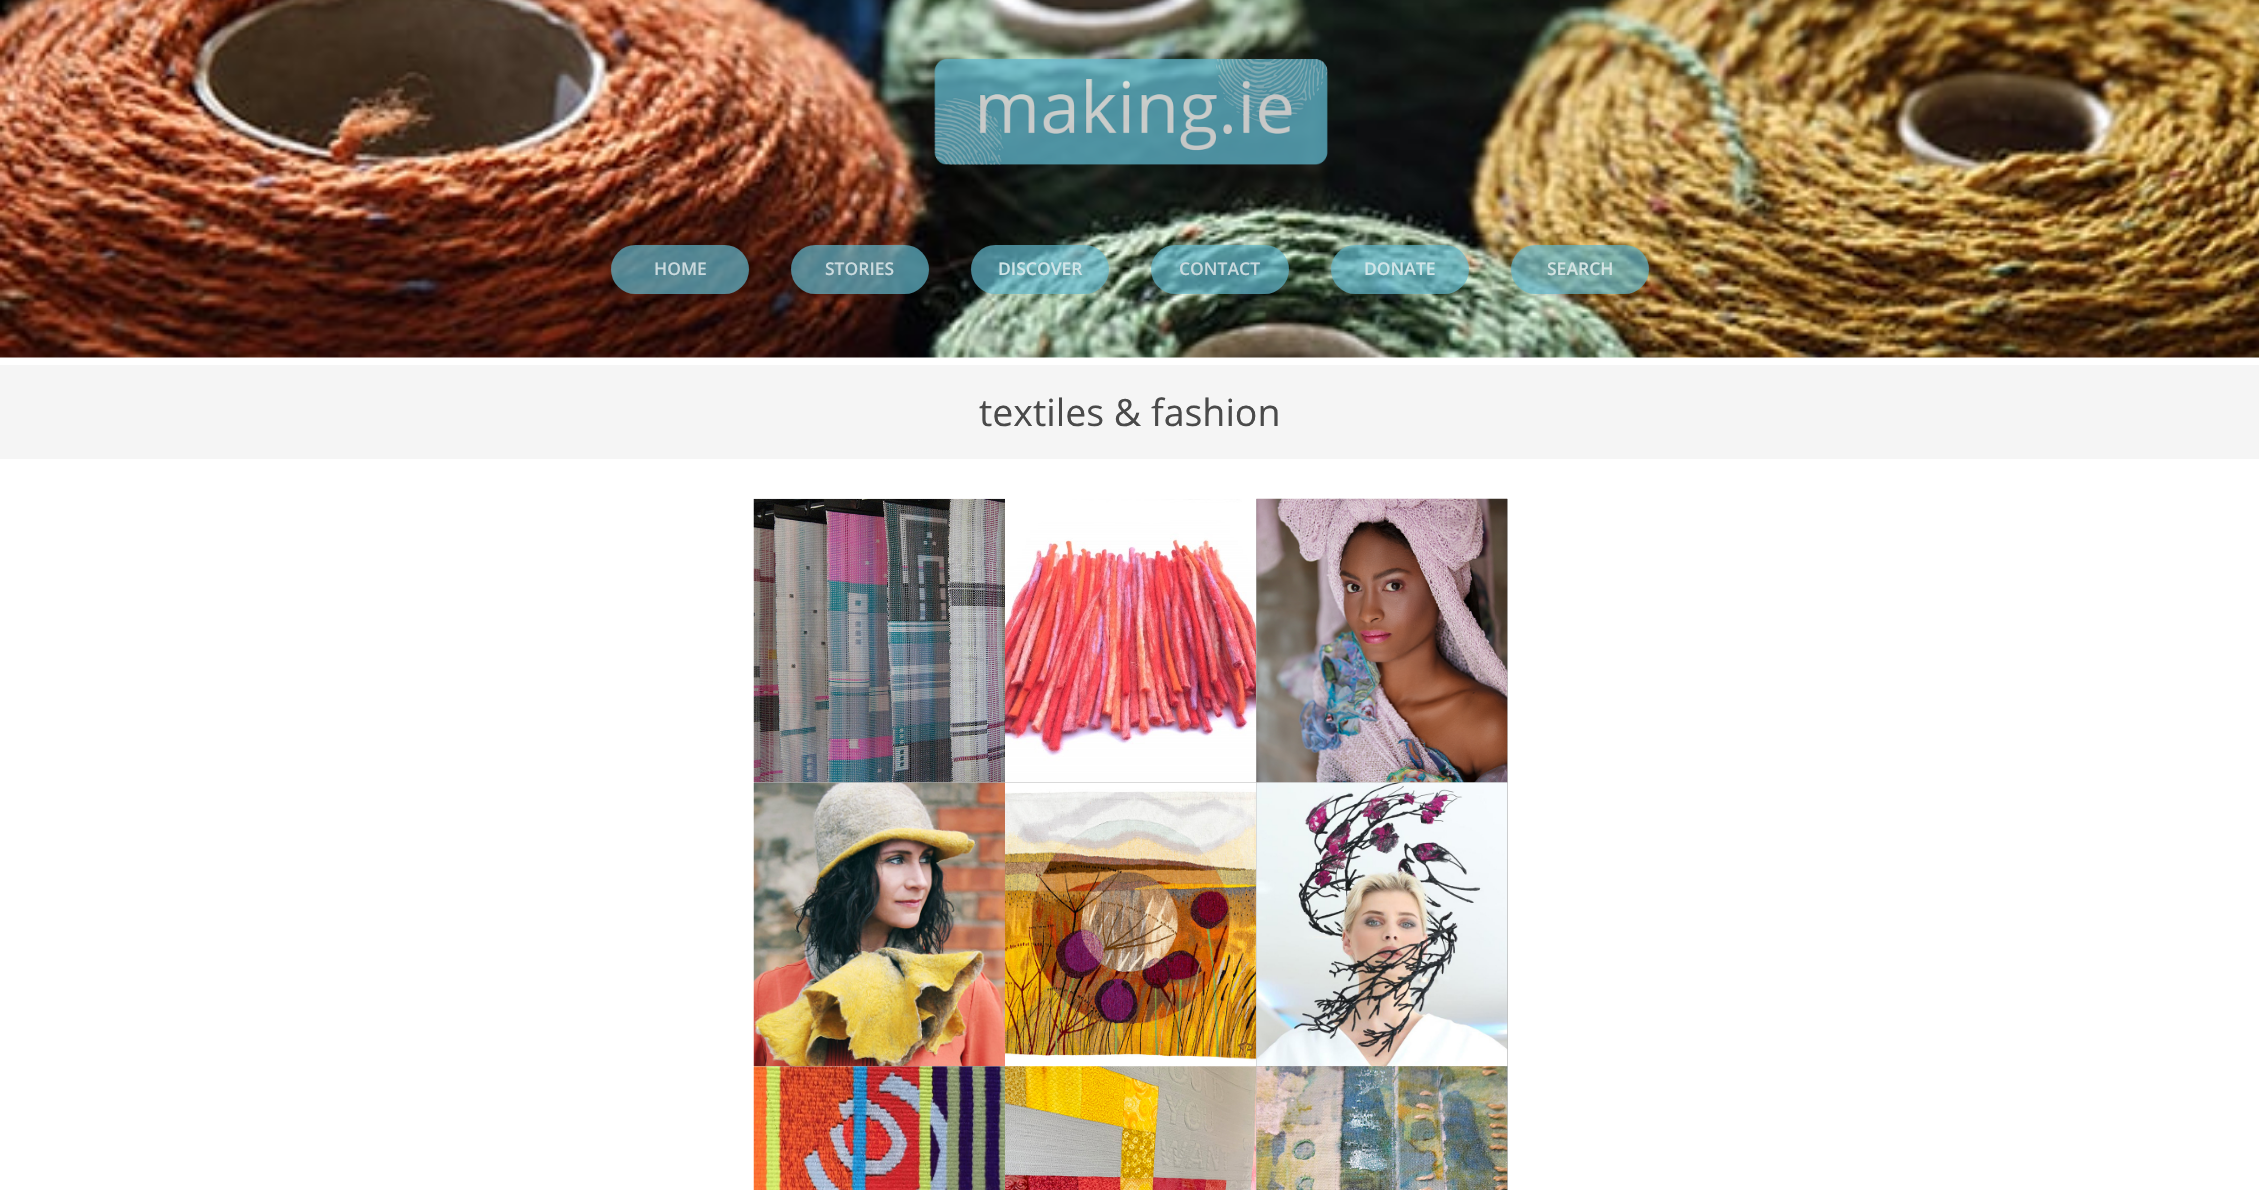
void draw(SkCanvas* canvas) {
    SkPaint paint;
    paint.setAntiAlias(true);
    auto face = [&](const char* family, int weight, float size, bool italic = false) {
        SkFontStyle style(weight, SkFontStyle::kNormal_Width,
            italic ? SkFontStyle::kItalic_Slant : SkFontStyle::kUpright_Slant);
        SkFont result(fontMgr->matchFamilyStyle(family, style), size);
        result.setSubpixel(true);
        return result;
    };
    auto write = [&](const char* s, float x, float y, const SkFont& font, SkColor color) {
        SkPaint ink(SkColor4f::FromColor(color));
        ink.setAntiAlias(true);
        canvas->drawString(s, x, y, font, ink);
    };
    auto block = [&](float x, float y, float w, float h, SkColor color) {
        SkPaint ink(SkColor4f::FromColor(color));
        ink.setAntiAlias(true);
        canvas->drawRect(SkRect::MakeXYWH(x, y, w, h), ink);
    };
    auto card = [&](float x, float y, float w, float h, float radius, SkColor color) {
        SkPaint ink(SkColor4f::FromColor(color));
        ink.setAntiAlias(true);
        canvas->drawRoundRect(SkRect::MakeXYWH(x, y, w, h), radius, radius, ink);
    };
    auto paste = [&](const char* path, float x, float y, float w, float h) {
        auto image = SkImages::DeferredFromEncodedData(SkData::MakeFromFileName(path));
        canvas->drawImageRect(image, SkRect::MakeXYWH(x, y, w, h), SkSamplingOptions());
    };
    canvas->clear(SK_ColorWHITE);
    paste("pic1.png", 0, 0, 2259, 358);
    paste("pic2.png", 934, 58, 394, 107);
    card(611, 245, 138, 49, 24.5f, SkColorSetARGB(179, 95, 182, 204));
    auto kFont1 = face("Open Sans", 600, 17.5f);
    write("HOME", 654, 275, kFont1, SkColorSetRGB(203, 218, 222));
    card(791, 245, 138, 49, 24.5f, SkColorSetARGB(179, 95, 182, 204));
    write("STORIES", 825, 275, kFont1, SkColorSetRGB(203, 218, 222));
    card(971, 245, 138, 49, 24.5f, SkColorSetARGB(179, 95, 182, 204));
    write("DISCOVER", 998, 275, kFont1, SkColorSetRGB(209, 229, 232));
    card(1151, 245, 138, 49, 24.5f, SkColorSetARGB(179, 95, 182, 204));
    write("CONTACT", 1179, 275, kFont1, SkColorSetRGB(203, 218, 222));
    card(1331, 245, 138, 49, 24.5f, SkColorSetARGB(179, 95, 182, 204));
    write("DONATE", 1364, 275, kFont1, SkColorSetRGB(209, 229, 232));
    card(1511, 245, 138, 49, 24.5f, SkColorSetARGB(179, 95, 182, 204));
    write("SEARCH", 1547, 275, kFont1, SkColorSetRGB(212, 227, 226));
    block(0, 365, 2259, 94, SkColorSetRGB(245, 245, 245));
    auto kFont2 = face("Open Sans", 400, 37.5f);
    write("textiles & fashion", 979, 426, kFont2, SkColorSetRGB(74, 74, 74));
    block(754, 782, 502, 1, SkColorSetRGB(189, 189, 189));
    paste("pic3.png", 753, 498, 252, 285);
    block(1256, 499, 252, 284, SkColorSetRGB(189, 189, 189));
    paste("pic4.png", 1256, 498, 252, 285);
    paste("pic5.png", 1005, 499, 251, 284);
    paste("pic6.png", 753, 782, 252, 284);
    paste("pic7.png", 1005, 782, 252, 284);
    block(1256, 783, 252, 407, SkColorSetRGB(189, 189, 189));
    paste("pic8.png", 1256, 782, 252, 284);
    block(754, 1066, 251, 1, SkColorSetRGB(189, 189, 189));
    paste("pic9.png", 753, 1066, 252, 124);
    paste("pic10.png", 1005, 1066, 251, 124);
    paste("pic11.png", 1256, 1066, 252, 124);
}
